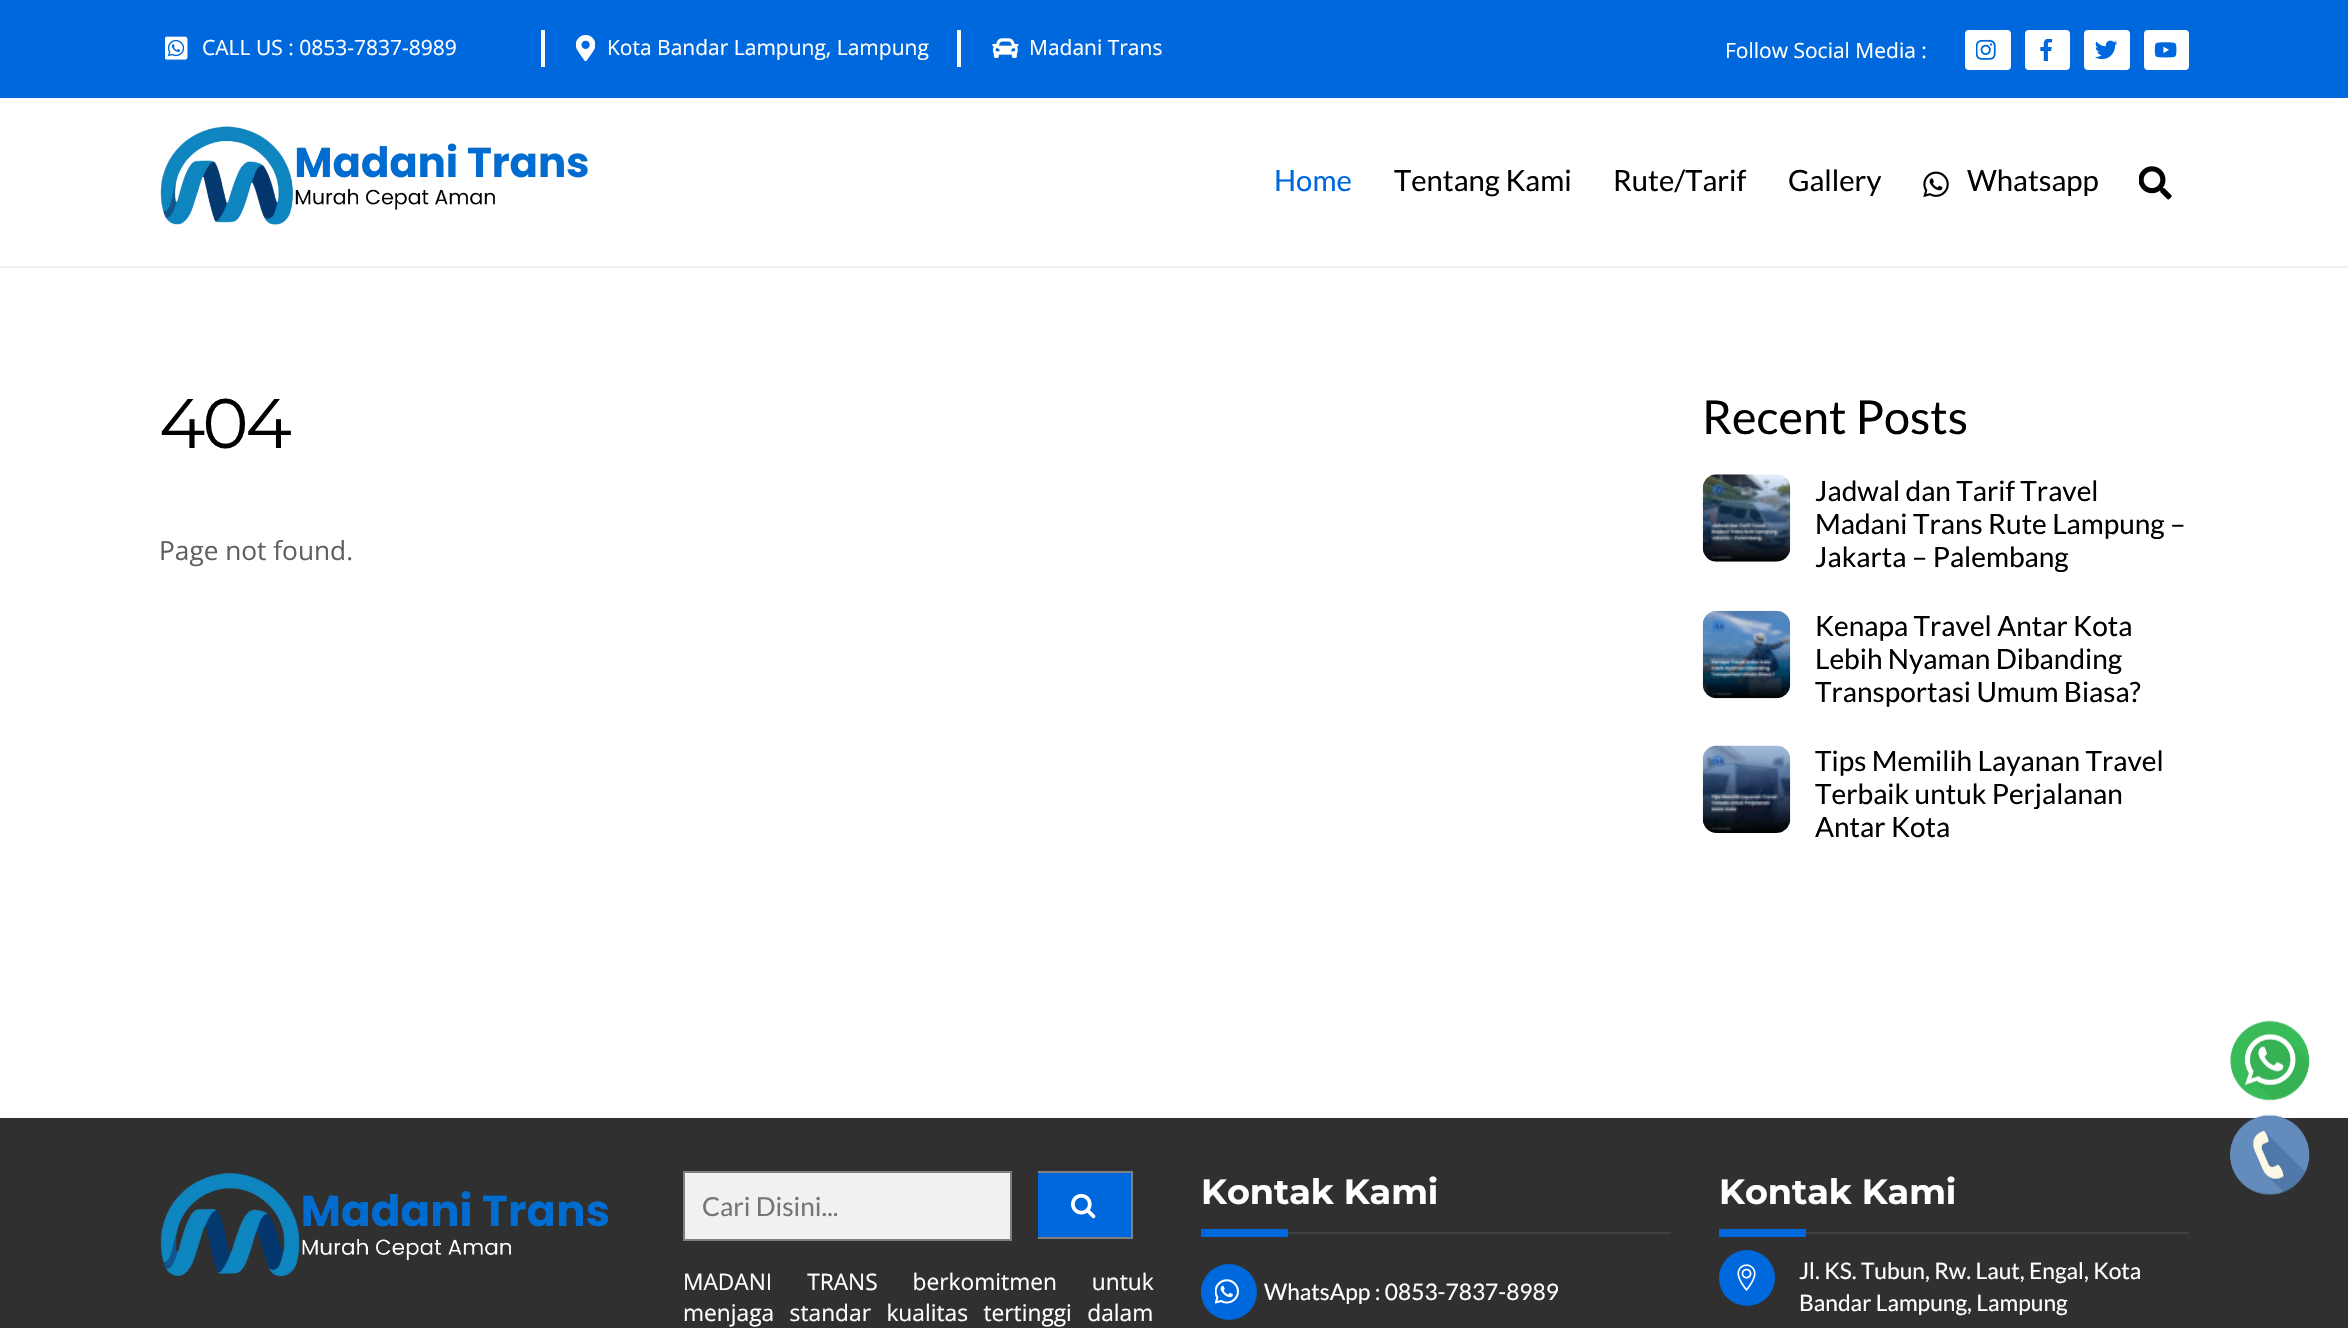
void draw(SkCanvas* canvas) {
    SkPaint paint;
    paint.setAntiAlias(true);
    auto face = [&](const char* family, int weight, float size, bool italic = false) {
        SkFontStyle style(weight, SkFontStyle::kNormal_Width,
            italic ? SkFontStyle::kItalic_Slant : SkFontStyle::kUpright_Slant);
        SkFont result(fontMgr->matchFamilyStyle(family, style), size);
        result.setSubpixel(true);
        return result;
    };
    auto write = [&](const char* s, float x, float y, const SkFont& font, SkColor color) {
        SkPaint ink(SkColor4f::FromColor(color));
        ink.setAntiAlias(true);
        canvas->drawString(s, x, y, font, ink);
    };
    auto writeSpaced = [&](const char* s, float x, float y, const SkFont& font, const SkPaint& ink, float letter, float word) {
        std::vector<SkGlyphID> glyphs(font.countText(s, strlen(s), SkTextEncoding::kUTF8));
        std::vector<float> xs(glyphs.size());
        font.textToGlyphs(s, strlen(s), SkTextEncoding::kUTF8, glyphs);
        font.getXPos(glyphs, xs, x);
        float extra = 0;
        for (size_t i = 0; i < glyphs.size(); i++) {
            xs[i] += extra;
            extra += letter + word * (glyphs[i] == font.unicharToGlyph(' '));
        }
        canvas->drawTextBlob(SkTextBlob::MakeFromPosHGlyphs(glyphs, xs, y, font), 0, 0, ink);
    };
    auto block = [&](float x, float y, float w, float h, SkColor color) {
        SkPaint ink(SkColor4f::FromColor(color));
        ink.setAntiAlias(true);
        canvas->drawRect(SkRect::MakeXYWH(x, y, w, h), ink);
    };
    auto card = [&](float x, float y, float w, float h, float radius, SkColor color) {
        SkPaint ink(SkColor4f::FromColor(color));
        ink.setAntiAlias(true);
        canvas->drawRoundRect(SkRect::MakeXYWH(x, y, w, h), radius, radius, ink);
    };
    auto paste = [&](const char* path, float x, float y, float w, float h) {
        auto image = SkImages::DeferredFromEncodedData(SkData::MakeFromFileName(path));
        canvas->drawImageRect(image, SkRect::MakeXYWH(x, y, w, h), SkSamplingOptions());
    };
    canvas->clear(SK_ColorWHITE);
    block(0, 266, 2348, 2, SkColorSetRGB(242, 242, 242));
    block(0, 0, 2348, 98, SkColorSetRGB(0, 104, 221));
    paste("pic1.png", 165, 36, 23, 24);
    auto kFont1 = face("Open Sans", 400, 21);
    write("CALL US : 0853-7837-8989", 202, 55, kFont1, SK_ColorWHITE);
    block(541, 30, 4, 37, SkColorSetRGB(250, 250, 250));
    paste("pic2.png", 576, 35, 19, 26);
    write("Kota Bandar Lampung, Lampung", 607, 55, kFont1, SK_ColorWHITE);
    block(957, 30, 4, 37, SkColorSetRGB(250, 250, 250));
    paste("pic3.png", 992, 38, 27, 20);
    write("Madani Trans", 1029, 55, kFont1, SK_ColorWHITE);
    write("Follow Social Media :", 1725, 58, kFont1, SK_ColorWHITE);
    card(1965, 30, 46, 40, 4, SK_ColorWHITE);
    paste("pic4.png", 1976, 39, 20, 21);
    card(2025, 30, 45, 40, 4, SK_ColorWHITE);
    paste("pic5.png", 2040, 39, 13, 22);
    card(2084, 30, 46, 40, 4, SK_ColorWHITE);
    paste("pic6.png", 2095, 40, 22, 20);
    card(2144, 30, 45, 40, 4, SK_ColorWHITE);
    paste("pic7.png", 2154, 42, 23, 16);
    paste("pic8.png", 160, 126, 428, 99);
    auto kFont2 = face("Lato", 400, 29.25f);
    write("Home", 1274, 191, kFont2, SkColorSetRGB(0, 104, 221));
    write("Tentang Kami", 1394, 191, kFont2, SK_ColorBLACK);
    write("Rute/Tarif", 1613, 191, kFont2, SK_ColorBLACK);
    write("Gallery", 1788, 191, kFont2, SK_ColorBLACK);
    paste("pic9.png", 1923, 171, 26, 27);
    write("Whatsapp", 1967, 191, kFont2, SK_ColorBLACK);
    paste("pic10.png", 2139, 166, 33, 34);
    auto kFont3 = face("Montserrat", 400, 70);
    paint.setColor(SK_ColorBLACK);
    writeSpaced("404", 159, 448, kFont3, paint, -3, 0);
    auto kFont4 = face("Open Sans", 400, 26.25f);
    write("Page not found.", 159, 560, kFont4, SkColorSetRGB(96, 96, 96));
    auto kFont5 = face("Lato", 400, 46.75f);
    write("Recent Posts", 1702, 434, kFont5, SK_ColorBLACK);
    paste("pic11.png", 1702, 474, 89, 88);
    auto kFont6 = face("Lato", 400, 28);
    write("Jadwal dan Tarif Travel", 1815, 501, kFont6, SK_ColorBLACK);
    write("Madani Trans Rute Lampung –", 1815, 534, kFont6, SK_ColorBLACK);
    write("Jakarta – Palembang", 1815, 567, kFont6, SK_ColorBLACK);
    paste("pic12.png", 1702, 610, 89, 89);
    write("Kenapa Travel Antar Kota", 1815, 636, kFont6, SK_ColorBLACK);
    write("Lebih Nyaman Dibanding", 1815, 669, kFont6, SK_ColorBLACK);
    write("Transportasi Umum Biasa?", 1815, 702, kFont6, SK_ColorBLACK);
    paste("pic13.png", 1702, 745, 89, 88);
    write("Tips Memilih Layanan Travel", 1815, 771, kFont6, SK_ColorBLACK);
    write("Terbaik untuk Perjalanan", 1815, 804, kFont6, SK_ColorBLACK);
    write("Antar Kota", 1815, 837, kFont6, SK_ColorBLACK);
    block(0, 1118, 2348, 210, SkColorSetRGB(48, 48, 48));
    paste("pic14.png", 160, 1173, 449, 104);
    paint.setColor(SkColorSetRGB(241, 241, 241));
    canvas->drawRect(SkRect::MakeXYWH(684, 1172, 327, 68), paint);
    paint.setStyle(SkPaint::kStroke_Style);
    paint.setStrokeWidth(2);
    paint.setColor(SkColorSetRGB(128, 128, 128));
    canvas->drawRect(SkRect::MakeXYWH(684, 1172, 327, 68), paint);
    auto kFont7 = face("Lato", 400, 26.25f);
    write("Cari Disini...", 702, 1216, kFont7, SkColorSetRGB(117, 117, 117));
    block(1038, 1173, 93, 64, SkColorSetRGB(0, 104, 221));
    block(1038, 1171, 94, 2, SkColorSetRGB(128, 128, 128));
    block(1131, 1171, 2, 68, SkColorSetRGB(128, 128, 128));
    block(1038, 1237, 94, 2, SkColorSetRGB(128, 128, 128));
    paste("pic15.png", 1071, 1193, 25, 26);
    auto kFont8 = face("Open Sans", 400, 22.75f);
    paint.setStyle(SkPaint::kFill_Style);
    paint.setColor(SK_ColorWHITE);
    writeSpaced("MADANI TRANS berkomitmen untuk", 683, 1290, kFont8, paint, 0, 29);
    writeSpaced("menjaga standar kualitas tertinggi dalam", 683, 1321, kFont8, paint, 0, 9.5f);
    block(1288, 1232, 383, 2, SkColorSetRGB(62, 65, 69));
    auto kFont9 = face("Montserrat", 700, 35);
    write("Kontak Kami", 1201, 1204, kFont9, SK_ColorWHITE);
    block(1201, 1229, 87, 8, SkColorSetRGB(0, 104, 221));
    paint.setColor(SkColorSetRGB(0, 104, 221));
    canvas->drawCircle(1229, 1292, 28, paint);
    paste("pic16.png", 1215, 1279, 24, 25);
    auto kFont10 = face("Lato", 400, 22.75f);
    write("WhatsApp : 0853-7837-8989", 1264, 1300, kFont10, SK_ColorWHITE);
    block(1806, 1232, 383, 2, SkColorSetRGB(62, 65, 69));
    write("Kontak Kami", 1719, 1204, kFont9, SK_ColorWHITE);
    block(1719, 1229, 87, 8, SkColorSetRGB(0, 104, 221));
    canvas->drawCircle(1747, 1278, 28, paint);
    paste("pic17.png", 1737, 1264, 19, 27);
    write("Jl. KS. Tubun, Rw. Laut, Engal, Kota", 1799, 1279, kFont10, SK_ColorWHITE);
    write("Bandar Lampung, Lampung", 1799, 1311, kFont10, SK_ColorWHITE);
    paste("pic18.png", 2230, 1020, 80, 81);
    paste("pic19.png", 2230, 1114, 80, 81);
}
